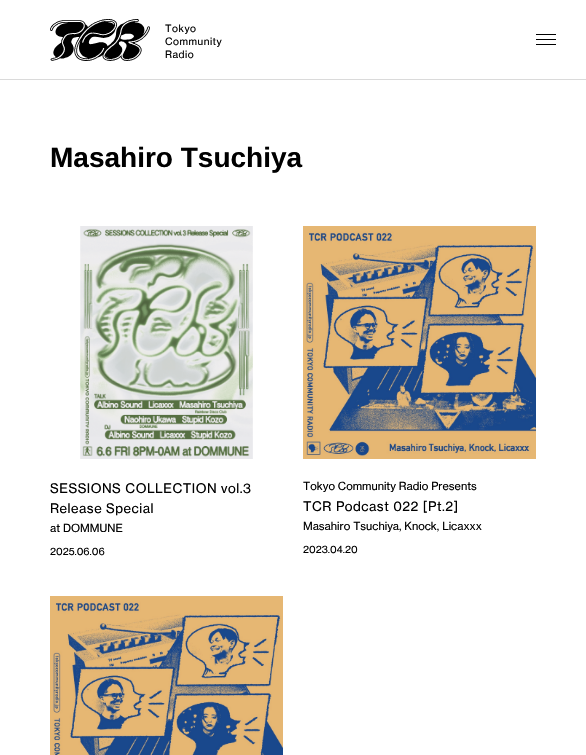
void draw(SkCanvas* canvas) {
    SkPaint paint;
    paint.setAntiAlias(true);
    auto face = [&](const char* family, int weight, float size, bool italic = false) {
        SkFontStyle style(weight, SkFontStyle::kNormal_Width,
            italic ? SkFontStyle::kItalic_Slant : SkFontStyle::kUpright_Slant);
        SkFont result(fontMgr->matchFamilyStyle(family, style), size);
        result.setSubpixel(true);
        return result;
    };
    auto write = [&](const char* s, float x, float y, const SkFont& font, SkColor color) {
        SkPaint ink(SkColor4f::FromColor(color));
        ink.setAntiAlias(true);
        canvas->drawString(s, x, y, font, ink);
    };
    auto writeSpaced = [&](const char* s, float x, float y, const SkFont& font, const SkPaint& ink, float letter, float word) {
        std::vector<SkGlyphID> glyphs(font.countText(s, strlen(s), SkTextEncoding::kUTF8));
        std::vector<float> xs(glyphs.size());
        font.textToGlyphs(s, strlen(s), SkTextEncoding::kUTF8, glyphs);
        font.getXPos(glyphs, xs, x);
        float extra = 0;
        for (size_t i = 0; i < glyphs.size(); i++) {
            xs[i] += extra;
            extra += letter + word * (glyphs[i] == font.unicharToGlyph(' '));
        }
        canvas->drawTextBlob(SkTextBlob::MakeFromPosHGlyphs(glyphs, xs, y, font), 0, 0, ink);
    };
    auto block = [&](float x, float y, float w, float h, SkColor color) {
        SkPaint ink(SkColor4f::FromColor(color));
        ink.setAntiAlias(true);
        canvas->drawRect(SkRect::MakeXYWH(x, y, w, h), ink);
    };
    auto paste = [&](const char* path, float x, float y, float w, float h) {
        auto image = SkImages::DeferredFromEncodedData(SkData::MakeFromFileName(path));
        canvas->drawImageRect(image, SkRect::MakeXYWH(x, y, w, h), SkSamplingOptions());
    };
    canvas->clear(SK_ColorWHITE);
    paste("pic1.png", 50, 19, 100, 42);
    auto kFont1 = face("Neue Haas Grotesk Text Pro", 400, 10);
    paint.setColor(SK_ColorBLACK);
    writeSpaced("Tokyo", 165, 32, kFont1, paint, 0.5f, 0);
    writeSpaced("Community", 165, 45, kFont1, paint, 0.5f, 0);
    writeSpaced("Radio", 165, 58, kFont1, paint, 0.5f, 0);
    block(0, 79, 586, 1, SkColorSetRGB(218, 218, 218));
    block(536, 34, 20, 1, SK_ColorBLACK);
    block(536, 39, 20, 1, SK_ColorBLACK);
    block(536, 44, 20, 1, SK_ColorBLACK);
    auto kFont2 = face("Liberation Sans", 700, 28);
    write("Masahiro Tsuchiya", 50, 167, kFont2, SK_ColorBLACK);
    paste("pic2.png", 80, 226, 173, 233);
    auto kFont3 = face("Neue Haas Grotesk Text Pro", 400, 13);
    writeSpaced("SESSIONS COLLECTION vol.3", 50, 493, kFont3, paint, 0.5f, 0);
    writeSpaced("Release Special", 50, 513, kFont3, paint, 0.5f, 0);
    auto kFont4 = face("Neue Haas Grotesk Text Pro", 400, 11);
    write("at DOMMUNE", 50, 532, kFont4, SK_ColorBLACK);
    write("2025.06.06", 50, 555, kFont1, SK_ColorBLACK);
    paste("pic3.png", 303, 226, 233, 233);
    write("Tokyo Community Radio Presents", 303, 490, kFont4, SK_ColorBLACK);
    writeSpaced("TCR Podcast 022 [Pt.2]", 303, 511, kFont3, paint, 0.5f, 0);
    write("Masahiro Tsuchiya, Knock, Licaxxx", 303, 530, kFont4, SK_ColorBLACK);
    write("2023.04.20", 303, 553, kFont1, SK_ColorBLACK);
    paste("pic4.png", 50, 596, 233, 159);
}
